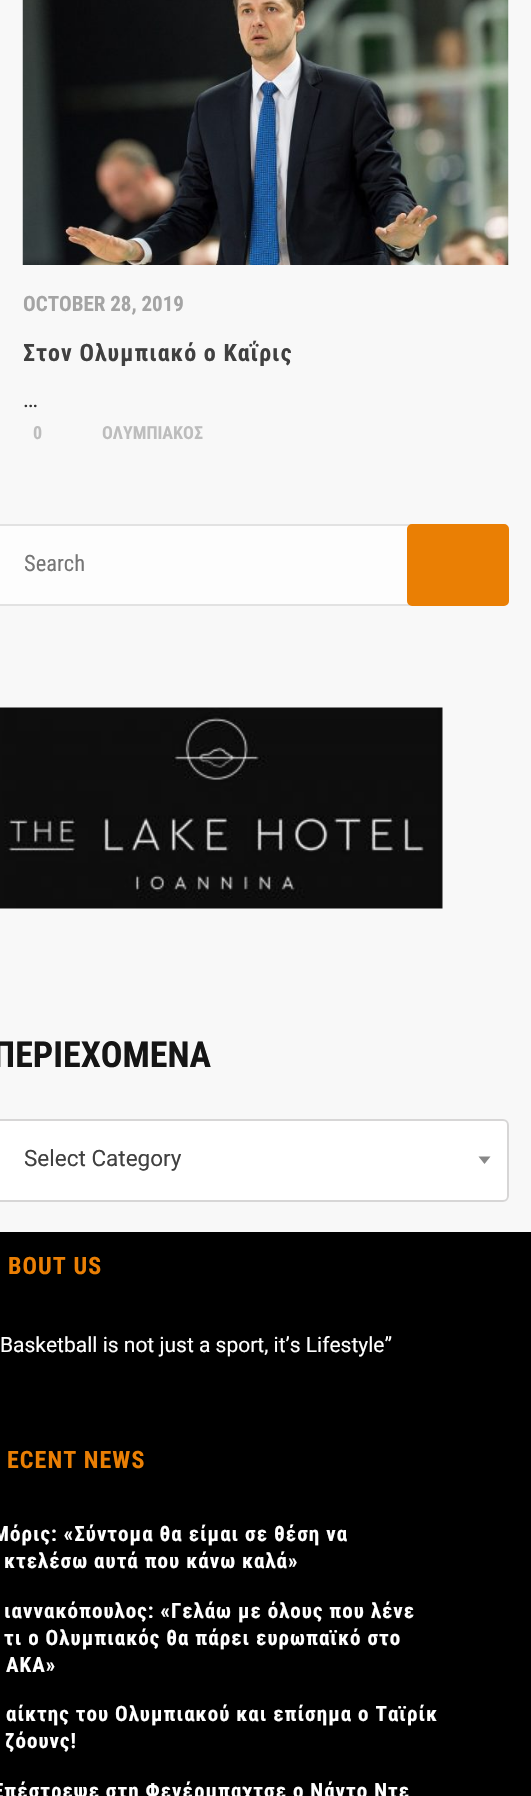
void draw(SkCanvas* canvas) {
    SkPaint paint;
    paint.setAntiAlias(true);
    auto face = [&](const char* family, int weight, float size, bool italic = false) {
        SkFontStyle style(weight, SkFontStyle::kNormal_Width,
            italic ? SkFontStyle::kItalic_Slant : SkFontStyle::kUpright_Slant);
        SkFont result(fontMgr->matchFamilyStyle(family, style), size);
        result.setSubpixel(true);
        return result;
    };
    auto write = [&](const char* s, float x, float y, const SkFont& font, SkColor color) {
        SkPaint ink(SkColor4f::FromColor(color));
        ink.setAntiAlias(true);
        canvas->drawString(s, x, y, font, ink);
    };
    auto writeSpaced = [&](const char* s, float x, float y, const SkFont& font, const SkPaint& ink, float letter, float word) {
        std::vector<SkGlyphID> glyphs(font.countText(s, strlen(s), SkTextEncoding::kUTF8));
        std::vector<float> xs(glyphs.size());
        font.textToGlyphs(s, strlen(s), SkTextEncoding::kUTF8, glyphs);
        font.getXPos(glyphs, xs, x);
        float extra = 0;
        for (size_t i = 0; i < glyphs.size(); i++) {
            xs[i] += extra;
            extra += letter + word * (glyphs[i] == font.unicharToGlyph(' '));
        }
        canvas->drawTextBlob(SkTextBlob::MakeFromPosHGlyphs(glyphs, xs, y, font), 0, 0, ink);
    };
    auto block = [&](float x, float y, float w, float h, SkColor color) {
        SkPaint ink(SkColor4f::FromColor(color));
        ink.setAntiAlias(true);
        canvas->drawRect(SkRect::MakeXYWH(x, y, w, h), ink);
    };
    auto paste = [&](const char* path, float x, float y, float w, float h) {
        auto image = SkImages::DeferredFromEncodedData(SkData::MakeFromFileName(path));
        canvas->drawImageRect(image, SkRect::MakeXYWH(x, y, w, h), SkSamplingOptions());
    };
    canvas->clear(SK_ColorBLACK);
    block(0, 0, 531, 1232, SkColorSetRGB(248, 248, 248));
    paste("pic1.png", 22, 0, 487, 265);
    auto kFont1 = face("Roboto Condensed", 700, 21);
    write("OCTOBER 28, 2019", 23, 311, kFont1, SkColorSetRGB(164, 164, 164));
    auto kFont2 = face("Roboto Condensed", 700, 24);
    paint.setColor(SkColorSetRGB(64, 64, 64));
    writeSpaced("Στον Ολυμπιακό ο Καΐρις", 23, 361, kFont2, paint, 1.05f, 0);
    auto kFont3 = face("Roboto", 400, 22.5f);
    write("…", 23, 407, kFont3, SkColorSetRGB(50, 50, 50));
    auto kFont4 = face("Roboto Condensed", 700, 18);
    write("0", 33, 439, kFont4, SkColorSetRGB(189, 189, 189));
    write("ΟΛΥΜΠΙΑΚΟΣ", 102, 439, kFont4, SkColorSetRGB(189, 189, 189));
    paint.setColor(SkColorSetRGB(253, 253, 253));
    canvas->drawPath(SkPathBuilder().moveTo(0, 524).lineTo(503, 524).cubicTo(506.5f, 524, 509, 526.5f, 509, 530).lineTo(509, 600).cubicTo(509, 603.5f, 506.5f, 606, 503, 606).lineTo(0, 606).close().detach(), paint);
    paint.setStyle(SkPaint::kStroke_Style);
    paint.setStrokeWidth(2);
    paint.setColor(SkColorSetRGB(226, 226, 226));
    canvas->drawRoundRect(SkRect::MakeXYWH(-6, 525, 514, 80), 5, 5, paint);
    auto kFont5 = face("Roboto Condensed", 400, 22.5f);
    write("Search", 24, 571, kFont5, SkColorSetRGB(117, 117, 117));
    paint.setStrokeWidth(3);
    paint.setColor(SkColorSetRGB(234, 127, 4));
    canvas->drawRoundRect(SkRect::MakeXYWH(408.5f, 525.5f, 99, 79), 3.5f, 3.5f, paint);
    block(410, 527, 96, 76, SkColorSetRGB(234, 127, 4));
    paste("pic2.png", 0, 707, 443, 202);
    auto kFont6 = face("Roboto Condensed", 700, 36);
    write("ΠΕΡΙΕΧΟΜΕΝΑ", -7, 1067, kFont6, SkColorSetRGB(21, 21, 21));
    paint.setStyle(SkPaint::kFill_Style);
    paint.setColor(SK_ColorWHITE);
    canvas->drawPath(SkPathBuilder().moveTo(0, 1119).lineTo(503, 1119).cubicTo(506.5f, 1119, 509, 1121.5f, 509, 1125).lineTo(509, 1196).cubicTo(509, 1199.5f, 506.5f, 1202, 503, 1202).lineTo(0, 1202).close().detach(), paint);
    paint.setStyle(SkPaint::kStroke_Style);
    paint.setStrokeWidth(2);
    paint.setColor(SkColorSetRGB(215, 214, 214));
    canvas->drawRoundRect(SkRect::MakeXYWH(-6, 1120, 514, 81), 5, 5, paint);
    write("Select Category", 24, 1166, kFont3, SkColorSetRGB(64, 64, 64));
    paint.setStyle(SkPaint::kFill_Style);
    paint.setColor(SkColorSetRGB(136, 136, 136));
    canvas->drawPath(SkPathBuilder().moveTo(478.5f, 1156.5f).lineTo(490.5f, 1156.5f).lineTo(484.5f, 1164).close().detach(), paint);
    paint.setColor(SkColorSetRGB(234, 127, 4));
    writeSpaced("BOUT US", 8, 1274, kFont2, paint, 1.05f, 0);
    auto kFont7 = face("Roboto", 400, 21);
    write("Basketball is not just a sport, it’s Lifestyle”", 0, 1352, kFont7, SK_ColorWHITE);
    writeSpaced("ECENT NEWS", 7, 1468, kFont2, paint, 1.05f, 0);
    paint.setColor(SK_ColorWHITE);
    writeSpaced("Μόρις: «Σύντομα θα είμαι σε θέση να", -7, 1541, kFont1, paint, 1.05f, 0);
    writeSpaced("κτελέσω αυτά που κάνω καλά»", 4, 1568, kFont1, paint, 1.05f, 0);
    writeSpaced("ιαννακόπουλος: «Γελάω με όλους που λένε", 4, 1618, kFont1, paint, 1.05f, 0);
    writeSpaced("τι ο Ολυμπιακός θα πάρει ευρωπαϊκό στο", 4, 1645, kFont1, paint, 1.05f, 0);
    writeSpaced("ΑΚΑ»", 6, 1672, kFont1, paint, 1.05f, 0);
    writeSpaced("αίκτης του Ολυμπιακού και επίσημα ο Ταϊρίκ", 6, 1721, kFont1, paint, 1.05f, 0);
    writeSpaced("ζόουνς!", 5, 1748, kFont1, paint, 1.05f, 0);
    writeSpaced("Επέστρεψε στη Φενέρμπαχτσε ο Νάντο Ντε", -7, 1798, kFont1, paint, 1.05f, 0);
}
